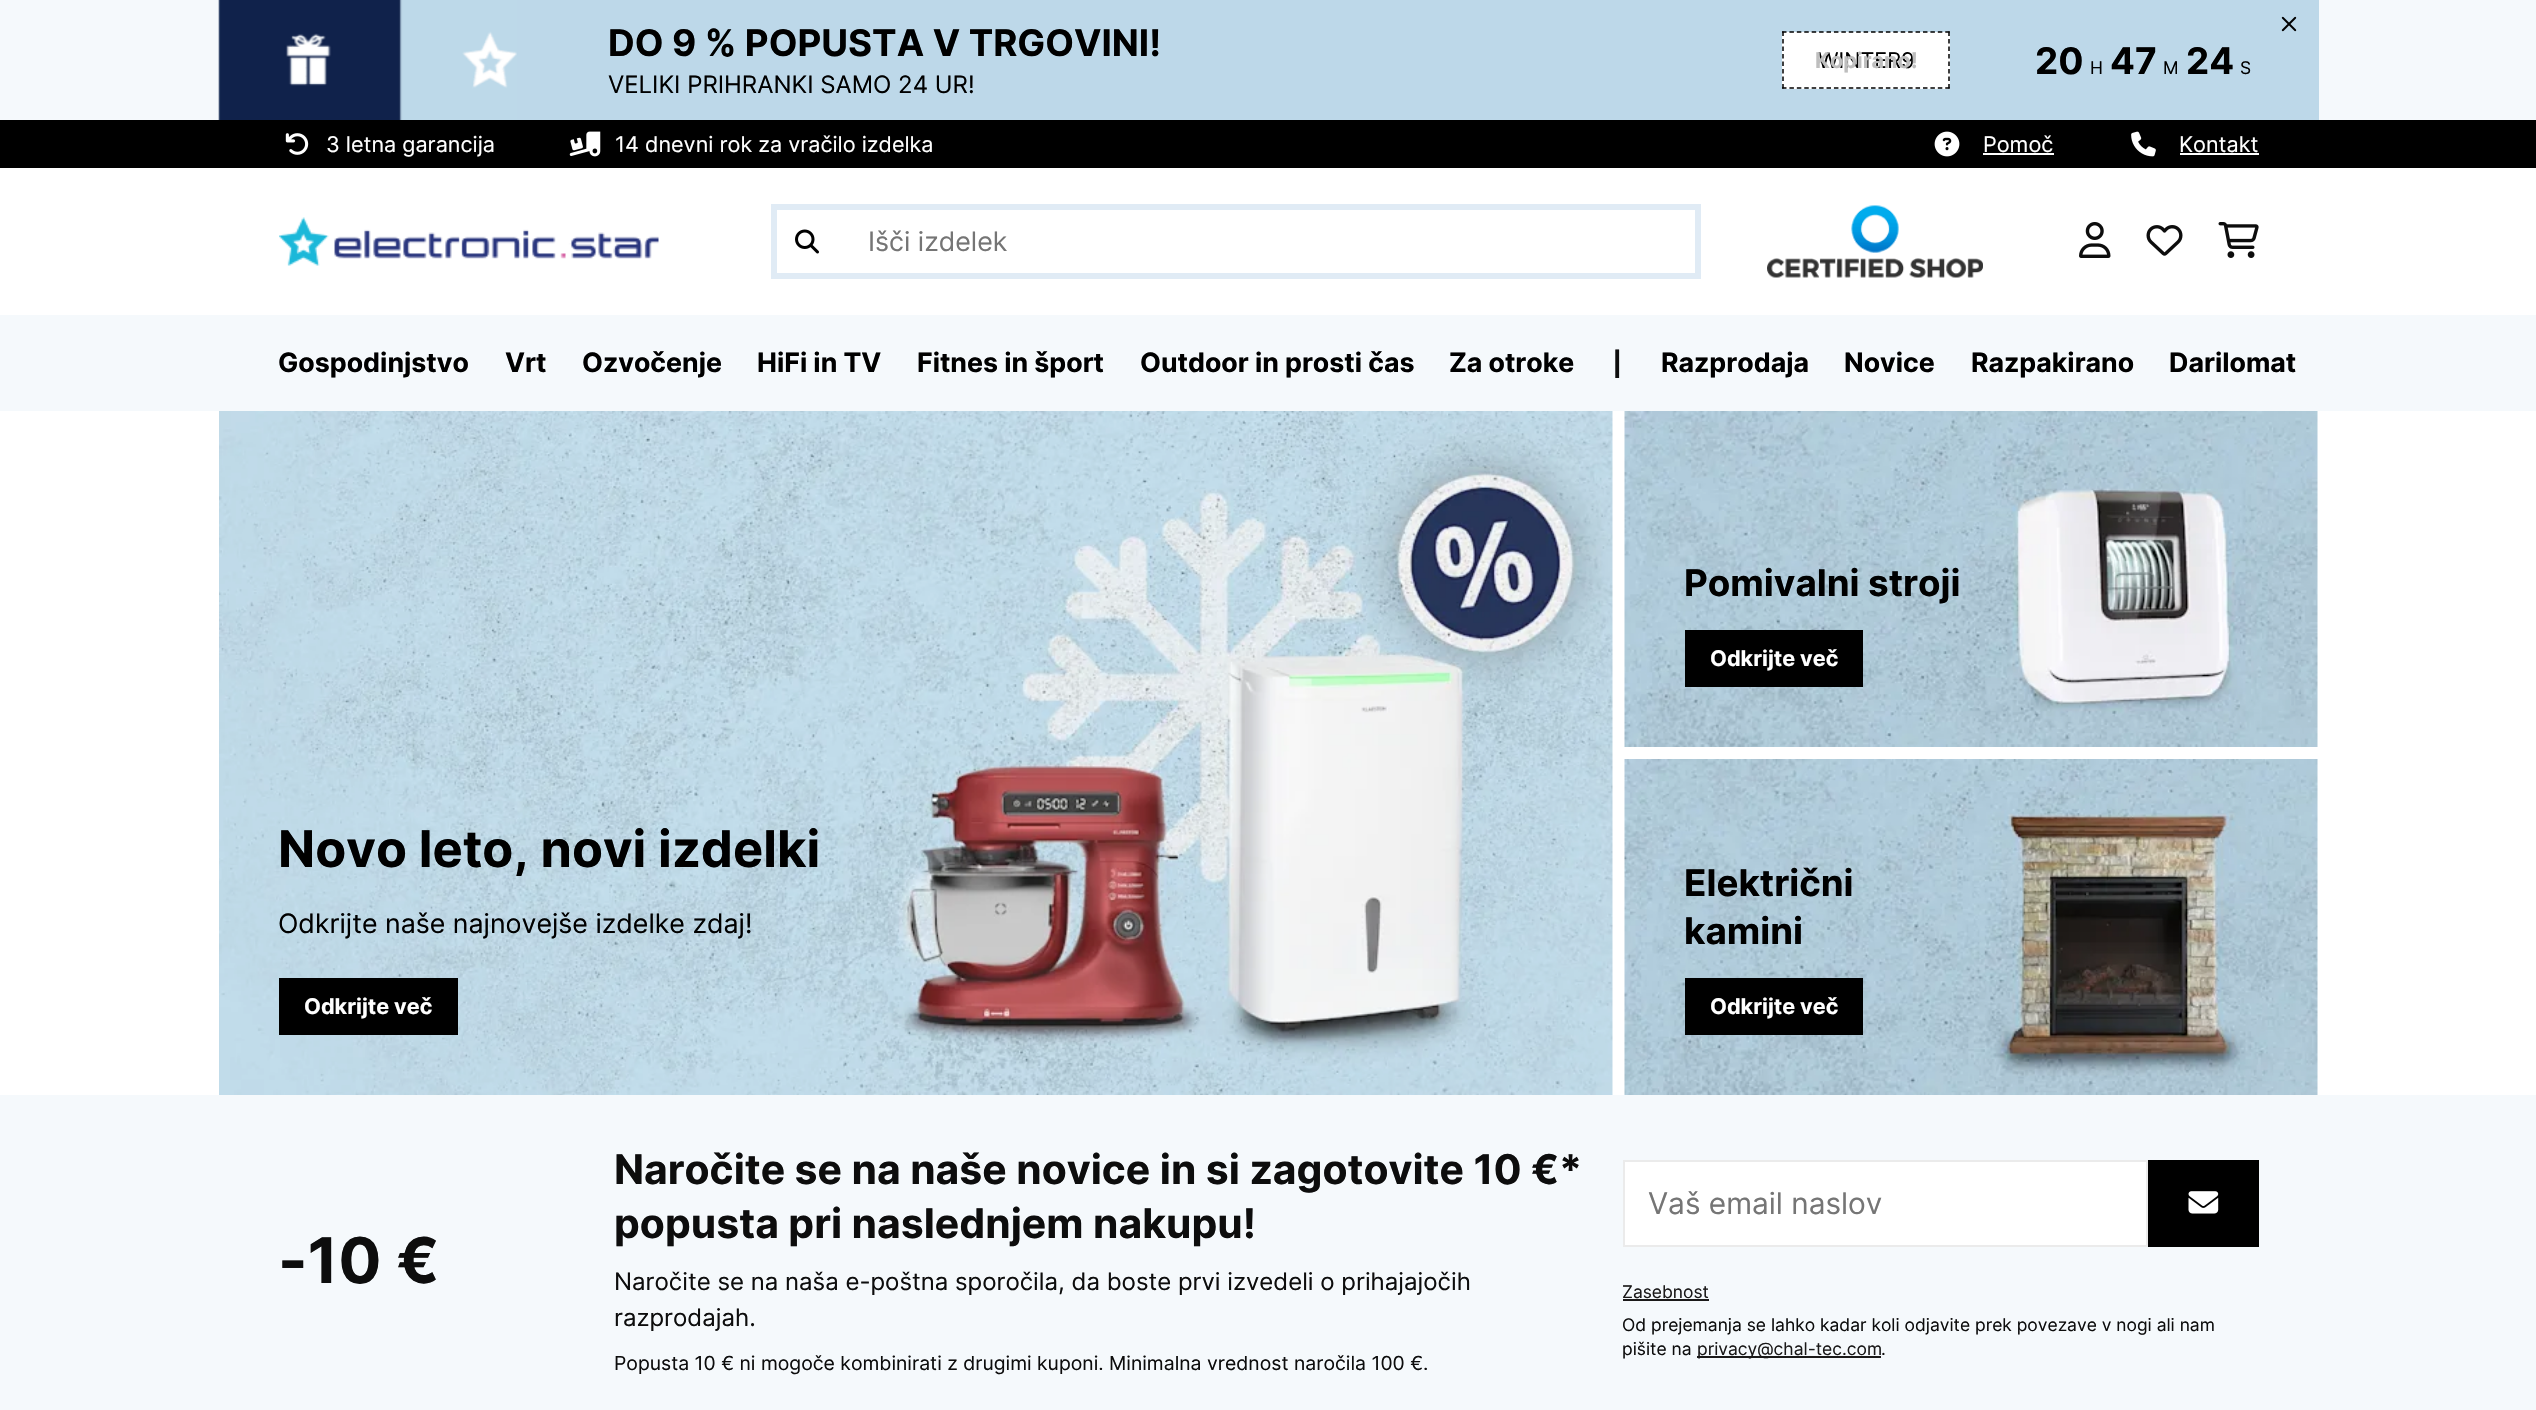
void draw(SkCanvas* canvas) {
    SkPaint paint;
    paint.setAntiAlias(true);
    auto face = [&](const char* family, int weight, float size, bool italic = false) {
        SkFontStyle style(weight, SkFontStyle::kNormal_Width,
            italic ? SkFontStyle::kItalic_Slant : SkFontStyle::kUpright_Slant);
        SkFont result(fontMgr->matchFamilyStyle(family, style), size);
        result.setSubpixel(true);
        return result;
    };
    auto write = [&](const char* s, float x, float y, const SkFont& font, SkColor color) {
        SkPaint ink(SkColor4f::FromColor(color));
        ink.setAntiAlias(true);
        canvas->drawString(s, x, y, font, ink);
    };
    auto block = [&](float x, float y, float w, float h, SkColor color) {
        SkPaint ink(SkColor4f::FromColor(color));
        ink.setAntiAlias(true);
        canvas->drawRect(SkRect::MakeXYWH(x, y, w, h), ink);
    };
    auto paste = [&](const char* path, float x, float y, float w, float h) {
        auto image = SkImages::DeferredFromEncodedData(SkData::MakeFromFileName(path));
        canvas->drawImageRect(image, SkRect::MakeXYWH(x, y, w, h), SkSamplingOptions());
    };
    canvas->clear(SK_ColorWHITE);
    block(0, 0, 2536, 120, SkColorSetRGB(245, 249, 252));
    block(219, 0, 2100, 120, SkColorSetRGB(189, 216, 233));
    paste("pic1.png", 2281, 16, 16, 16);
    paste("pic2.png", 218, 0, 299, 120);
    auto kFont1 = face("Inter", 700, 36.75f);
    write("DO 9 % POPUSTA V TRGOVINI!", 608, 56, kFont1, SK_ColorBLACK);
    auto kFont2 = face("Inter", 400, 24);
    write("VELIKI PRIHRANKI SAMO 24 UR!", 608, 93, kFont2, SK_ColorBLACK);
    block(1782, 32, 168, 57, SK_ColorWHITE);
    paint.setStyle(SkPaint::kStroke_Style);
    paint.setStrokeWidth(1.5f);
    paint.setColor(SK_ColorBLACK);
    paint.setPathEffect(SkDashPathEffect::Make({{4.5f, 2.92f}}, 0));
    canvas->drawPath(SkPathBuilder().moveTo(1782, 32).lineTo(1950, 32).detach(), paint);
    paint.setPathEffect(nullptr);
    paint.setPathEffect(SkDashPathEffect::Make({{4.5f, 3}}, 0));
    canvas->drawPath(SkPathBuilder().moveTo(1949, 31.5f).lineTo(1949, 88.5f).detach(), paint);
    paint.setPathEffect(nullptr);
    paint.setPathEffect(SkDashPathEffect::Make({{4.5f, 2.92f}}, 0));
    canvas->drawPath(SkPathBuilder().moveTo(1782, 88).lineTo(1950, 88).detach(), paint);
    paint.setPathEffect(nullptr);
    paint.setPathEffect(SkDashPathEffect::Make({{4.5f, 3}}, 0));
    canvas->drawPath(SkPathBuilder().moveTo(1783, 31.5f).lineTo(1783, 88.5f).detach(), paint);
    paint.setPathEffect(nullptr);
    auto kFont3 = face("Inter", 400, 21.6f);
    write("WINTER9", 1818, 68, kFont3, SK_ColorBLACK);
    auto kFont4 = face("Inter", 700, 21.6f);
    write("Kopirano!", 1815, 68, kFont4, SkColorSetRGB(190, 190, 190));
    write("20", 2035, 74, kFont1, SK_ColorBLACK);
    auto kFont5 = face("Inter", 400, 17.45f);
    write("H", 2090, 74, kFont5, SK_ColorBLACK);
    write("47", 2110, 74, kFont1, SK_ColorBLACK);
    write("M", 2163, 74, kFont5, SK_ColorBLACK);
    write("24", 2186, 74, kFont1, SK_ColorBLACK);
    write("S", 2240, 74, kFont5, SK_ColorBLACK);
    block(0, 120, 2536, 48, SK_ColorBLACK);
    paste("pic3.png", 285, 133, 24, 22);
    write("3 letna garancija", 326, 152, kFont3, SK_ColorWHITE);
    paste("pic4.png", 569, 131, 32, 26);
    write("14 dnevni rok za vračilo izdelka", 615, 152, kFont3, SK_ColorWHITE);
    paste("pic5.png", 1934, 131, 26, 26);
    write("Pomoč", 1983, 152, kFont3, SK_ColorWHITE);
    block(1983, 153, 71, 2, SK_ColorWHITE);
    paste("pic6.png", 2131, 131, 25, 26);
    write("Kontakt", 2179, 152, kFont3, SK_ColorWHITE);
    block(2180, 153, 79, 2, SK_ColorWHITE);
    paste("pic7.png", 279, 217, 380, 49);
    paint.setStrokeWidth(6);
    paint.setColor(SkColorSetRGB(224, 235, 245));
    canvas->drawRect(SkRect::MakeXYWH(774, 207, 924, 69), paint);
    paste("pic8.png", 795, 229, 24, 25);
    auto kFont6 = face("Inter", 400, 26.75f);
    write("Išči izdelek", 868, 251, kFont6, SkColorSetRGB(117, 117, 117));
    paste("pic9.png", 1767, 205, 216, 73);
    paste("pic10.png", 2079, 222, 32, 36);
    paste("pic11.png", 2146, 225, 37, 31);
    paste("pic12.png", 2218, 222, 41, 36);
    block(0, 315, 2536, 96, SkColorSetRGB(245, 249, 252));
    auto kFont7 = face("Inter", 700, 26.75f);
    write("Gospodinjstvo", 278, 372, kFont7, SK_ColorBLACK);
    write("Vrt", 505, 372, kFont7, SK_ColorBLACK);
    write("Ozvočenje", 582, 372, kFont7, SK_ColorBLACK);
    write("HiFi in TV", 757, 372, kFont7, SK_ColorBLACK);
    write("Fitnes in šport", 917, 372, kFont7, SK_ColorBLACK);
    write("Outdoor in prosti čas", 1140, 372, kFont7, SK_ColorBLACK);
    write("Za otroke", 1449, 372, kFont7, SK_ColorBLACK);
    auto kFont8 = face("DejaVu Sans", 400, 24);
    write("┃", 1610, 372, kFont8, SkColorSetRGB(13, 13, 13));
    write("Razprodaja", 1661, 372, kFont7, SK_ColorBLACK);
    write("Novice", 1844, 372, kFont7, SK_ColorBLACK);
    write("Razpakirano", 1971, 372, kFont7, SK_ColorBLACK);
    write("Darilomat", 2169, 372, kFont7, SK_ColorBLACK);
    paste("pic13.png", 219, 411, 1394, 684);
    auto kFont9 = face("Inter", 700, 50.6f);
    write("Novo leto, novi izdelki", 278, 867, kFont9, SK_ColorBLACK);
    write("Odkrijte naše najnovejše izdelke zdaj!", 278, 933, kFont6, SK_ColorBLACK);
    block(279, 978, 179, 57, SK_ColorBLACK);
    write("Odkrijte več", 304, 1014, kFont4, SK_ColorWHITE);
    paste("pic14.png", 1624, 411, 694, 336);
    write("Pomivalni stroji", 1684, 596, kFont1, SK_ColorBLACK);
    block(1685, 630, 178, 57, SK_ColorBLACK);
    write("Odkrijte več", 1710, 666, kFont4, SK_ColorWHITE);
    paste("pic15.png", 1624, 759, 694, 336);
    write("Električni", 1684, 896, kFont1, SK_ColorBLACK);
    write("kamini", 1684, 944, kFont1, SK_ColorBLACK);
    block(1685, 978, 178, 57, SK_ColorBLACK);
    write("Odkrijte več", 1710, 1014, kFont4, SK_ColorWHITE);
    block(0, 1095, 2536, 315, SkColorSetRGB(245, 249, 252));
    auto kFont10 = face("Inter", 700, 63);
    write("-10 €", 278, 1283, kFont10, SkColorSetRGB(13, 13, 13));
    auto kFont11 = face("Inter", 700, 40.9f);
    write("Naročite se na naše novice in si zagotovite 10 €*", 614, 1184, kFont11, SkColorSetRGB(13, 13, 13));
    write("popusta pri naslednjem nakupu!", 614, 1238, kFont11, SkColorSetRGB(13, 13, 13));
    write("Naročite se na naša e-poštna sporočila, da boste prvi izvedeli o prihajajočih", 614, 1290, kFont2, SkColorSetRGB(13, 13, 13));
    write("razprodajah.", 614, 1326, kFont2, SkColorSetRGB(13, 13, 13));
    auto kFont12 = face("Inter", 400, 19.4f);
    write("Popusta 10 € ni mogoče kombinirati z drugimi kuponi. Minimalna vrednost naročila 100 €.", 614, 1370, kFont12, SkColorSetRGB(13, 13, 13));
    paint.setStyle(SkPaint::kFill_Style);
    paint.setColor(SK_ColorWHITE);
    canvas->drawRect(SkRect::MakeXYWH(1624, 1161, 523, 85), paint);
    paint.setStyle(SkPaint::kStroke_Style);
    paint.setStrokeWidth(2);
    paint.setColor(SkColorSetRGB(235, 235, 235));
    canvas->drawRect(SkRect::MakeXYWH(1624, 1161, 523, 85), paint);
    auto kFont13 = face("Inter", 400, 29.75f);
    write("Vaš email naslov", 1648, 1214, kFont13, SkColorSetRGB(117, 117, 117));
    block(2148, 1160, 111, 87, SK_ColorBLACK);
    paste("pic16.png", 2188, 1191, 31, 23);
    write("Zasebnost", 1622, 1298, kFont5, SkColorSetRGB(26, 25, 25));
    block(1623, 1299, 86, 2, SkColorSetRGB(26, 25, 25));
    write("Od prejemanja se lahko kadar koli odjavite prek povezave v nogi ali nam", 1622, 1331, kFont5, SkColorSetRGB(13, 13, 13));
    write("pišite na", 1622, 1355, kFont5, SkColorSetRGB(13, 13, 13));
    block(1697, 1356, 184, 2, SkColorSetRGB(26, 25, 25));
    write("privacy@chal-tec.com", 1697, 1355, kFont5, SkColorSetRGB(26, 25, 25));
    write(".", 1881, 1355, kFont5, SkColorSetRGB(13, 13, 13));
}
